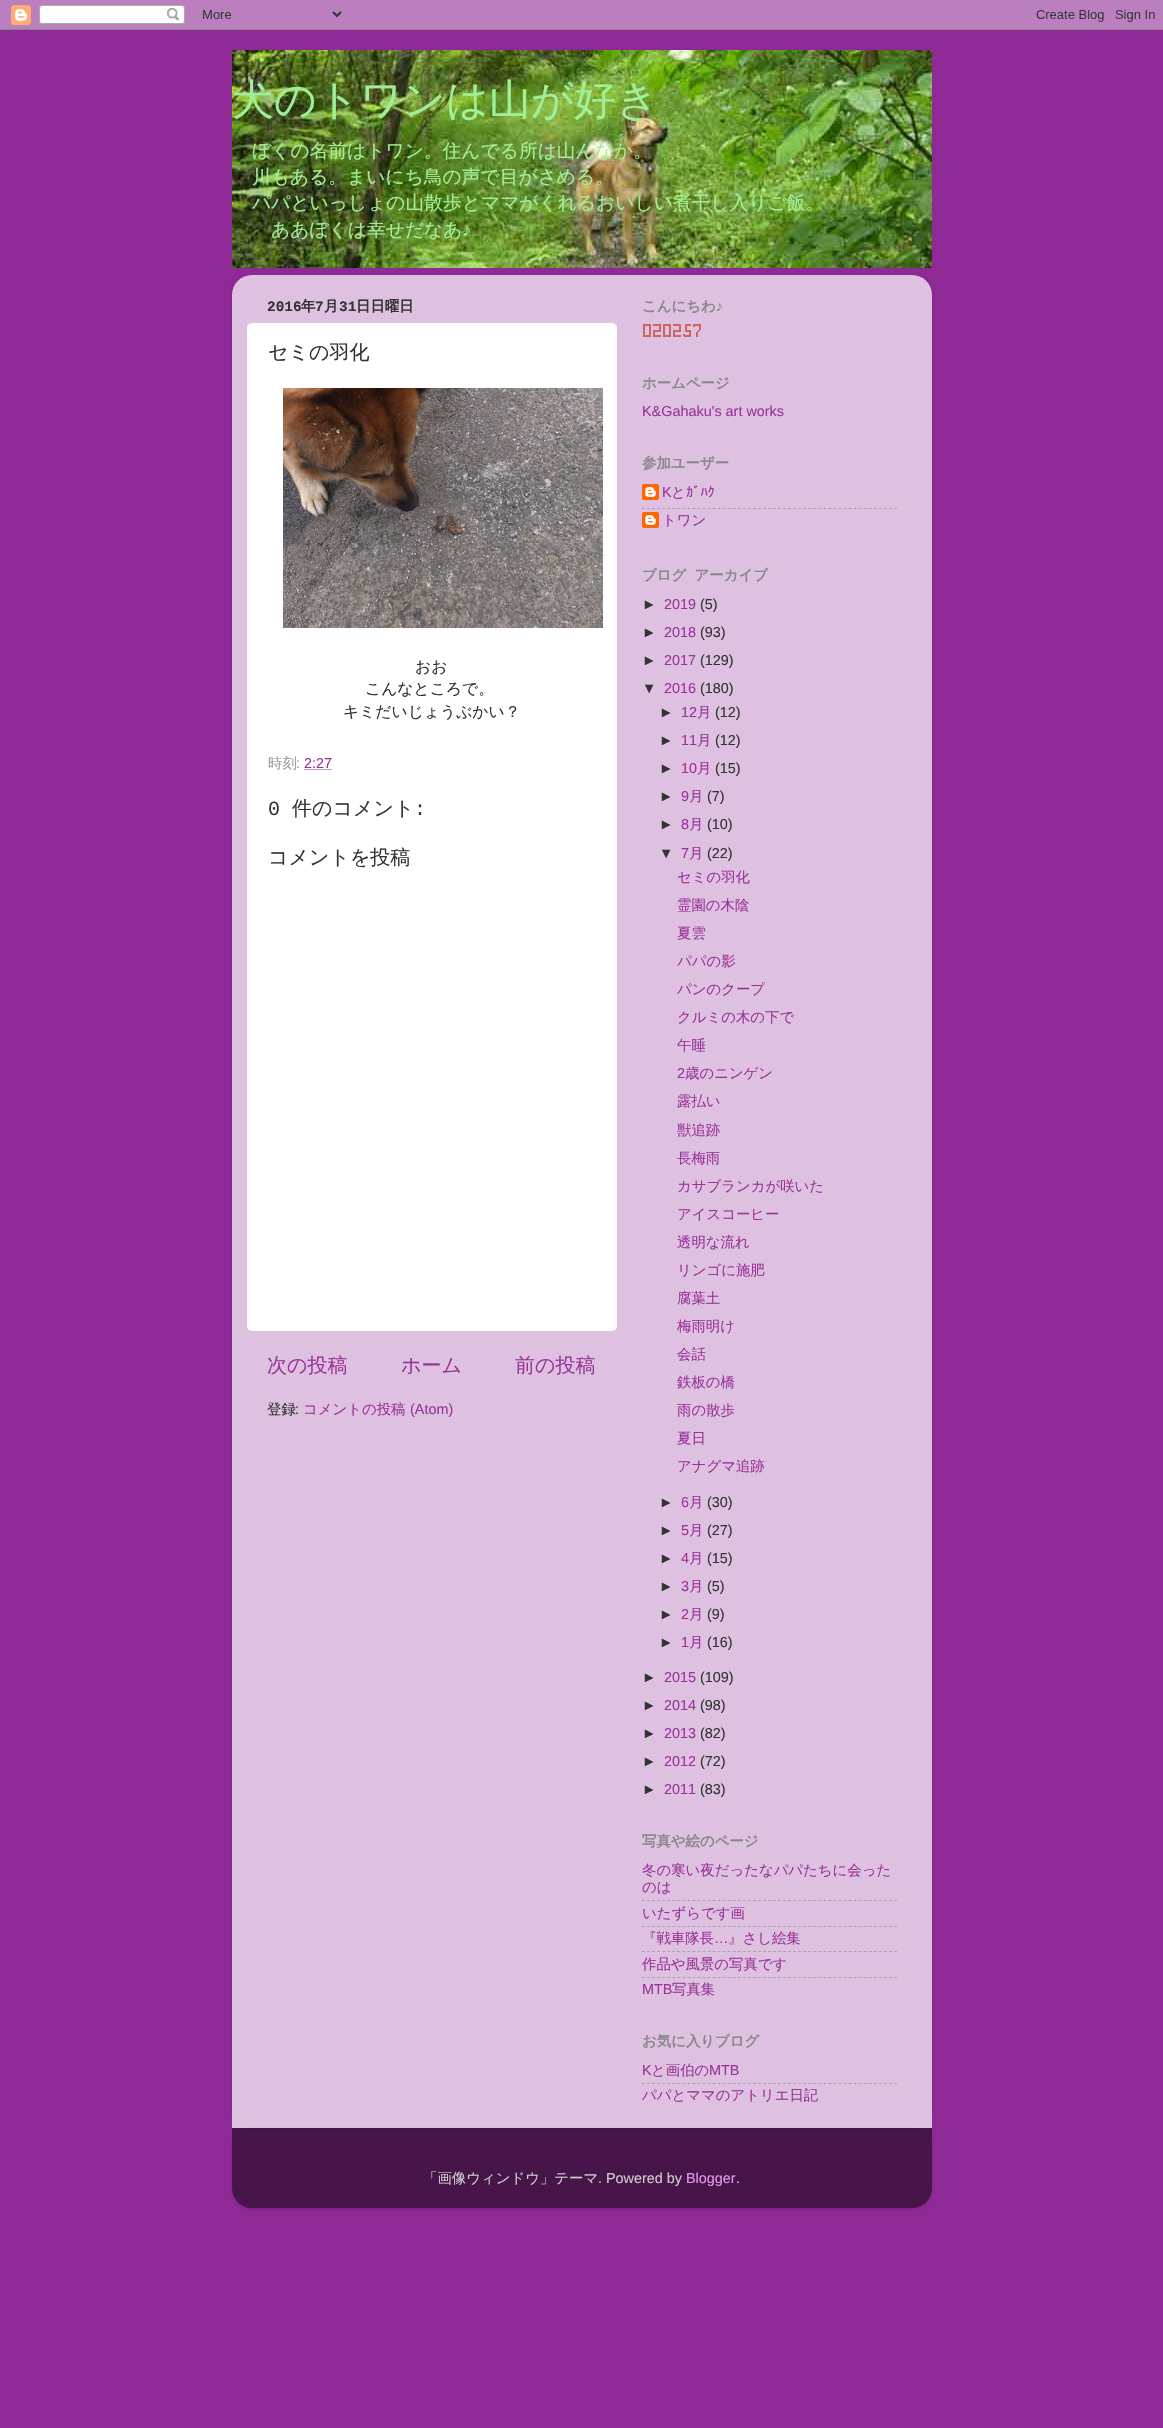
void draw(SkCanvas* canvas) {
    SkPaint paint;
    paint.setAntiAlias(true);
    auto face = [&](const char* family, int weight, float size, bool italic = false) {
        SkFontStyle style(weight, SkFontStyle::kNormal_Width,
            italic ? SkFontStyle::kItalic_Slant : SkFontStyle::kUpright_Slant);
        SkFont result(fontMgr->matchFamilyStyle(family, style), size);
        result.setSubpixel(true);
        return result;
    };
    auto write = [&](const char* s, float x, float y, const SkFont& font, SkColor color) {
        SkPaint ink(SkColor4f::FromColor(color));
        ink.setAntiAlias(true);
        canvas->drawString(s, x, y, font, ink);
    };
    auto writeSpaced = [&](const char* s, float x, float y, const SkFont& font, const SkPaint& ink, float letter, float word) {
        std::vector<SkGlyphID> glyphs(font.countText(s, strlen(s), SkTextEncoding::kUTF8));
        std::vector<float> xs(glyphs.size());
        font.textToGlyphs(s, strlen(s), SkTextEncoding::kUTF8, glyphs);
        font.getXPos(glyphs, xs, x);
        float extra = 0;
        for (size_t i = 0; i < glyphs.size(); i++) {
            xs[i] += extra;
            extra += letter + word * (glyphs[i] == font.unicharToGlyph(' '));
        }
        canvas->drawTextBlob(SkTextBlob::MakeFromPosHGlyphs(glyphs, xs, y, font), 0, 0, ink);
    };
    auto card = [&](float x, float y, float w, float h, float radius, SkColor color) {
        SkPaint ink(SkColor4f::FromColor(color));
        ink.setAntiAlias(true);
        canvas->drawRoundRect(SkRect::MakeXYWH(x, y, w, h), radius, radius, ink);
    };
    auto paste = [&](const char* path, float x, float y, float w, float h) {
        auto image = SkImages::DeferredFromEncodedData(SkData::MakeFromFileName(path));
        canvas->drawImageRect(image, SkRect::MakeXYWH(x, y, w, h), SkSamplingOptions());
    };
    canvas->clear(SkColorSetRGB(142, 41, 149));
    paste("pic1.png", 0, 0, 1163, 30);
    paste("pic2.png", 232, 50, 700, 218);
    auto kFont1 = face("WenQuanYi Zen Hei", 500, 42);
    write("犬のトワンは山が好き", 232, 114, kFont1, SkColorSetRGB(161, 238, 152));
    auto kFont2 = face("WenQuanYi Zen Hei", 500, 18.75f);
    write("ぼくの名前はトワン。住んでる所は山んなか。", 252, 157, kFont2, SkColorSetRGB(161, 238, 152));
    write("川もある。まいにち鳥の声で目がさめる。", 252, 183, kFont2, SkColorSetRGB(161, 238, 152));
    write("パパといっしょの山散歩とママがくれるおいしい煮干し入りご飯。", 252, 209, kFont2, SkColorSetRGB(161, 238, 152));
    write("ああぼくは幸せだなあ", 271, 236, kFont2, SkColorSetRGB(161, 238, 152));
    auto kFont3 = face("Liberation Sans", 400, 18.75f);
    write("♪", 462, 236, kFont3, SkColorSetRGB(161, 238, 152));
    canvas->save();
    canvas->clipPath(SkPathBuilder(SkPathFillType::kEvenOdd).moveTo(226, 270).lineTo(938, 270).lineTo(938, 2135).lineTo(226, 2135).close().moveTo(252, 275).lineTo(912, 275).cubicTo(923, 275, 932, 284, 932, 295).lineTo(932, 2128).lineTo(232, 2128).lineTo(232, 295).cubicTo(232, 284, 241, 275, 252, 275).close().detach(), true);
    paint.setColor(SkColorSetARGB(38, 0, 0, 0));
    paint.setMaskFilter(SkMaskFilter::MakeBlur(kNormal_SkBlurStyle, 1.5f));
    canvas->drawRoundRect(SkRect::MakeXYWH(232, 276, 700, 1853), 20, 20, paint);
    paint.setMaskFilter(nullptr);
    canvas->restore();
    paste("pic3.png", 232, 275, 700, 1853);
    auto kFont4 = face("Liberation Mono", 700, 14.4f);
    write("2016", 267, 311, kFont4, SkColorSetRGB(51, 51, 51));
    auto kFont5 = face("WenQuanYi Zen Hei", 700, 14.4f);
    write("年", 301, 311, kFont5, SkColorSetRGB(51, 51, 51));
    write("7", 315, 311, kFont4, SkColorSetRGB(51, 51, 51));
    write("月", 324, 311, kFont5, SkColorSetRGB(51, 51, 51));
    write("31", 339, 311, kFont4, SkColorSetRGB(51, 51, 51));
    write("日日曜日", 356, 311, kFont5, SkColorSetRGB(51, 51, 51));
    card(247, 323, 370, 1008, 5, SK_ColorWHITE);
    auto kFont6 = face("WenQuanYi Zen Hei", 500, 20);
    write("セミの羽化", 268, 359, kFont6, SkColorSetRGB(51, 51, 51));
    paste("pic4.png", 283, 388, 320, 240);
    auto kFont7 = face("WenQuanYi Zen Hei", 500, 15.8f);
    write("おお", 415, 672, kFont7, SkColorSetRGB(51, 51, 51));
    write("こんなところで。", 365, 694, kFont7, SkColorSetRGB(51, 51, 51));
    write("キミだいじょうぶかい？", 343, 717, kFont7, SkColorSetRGB(51, 51, 51));
    auto kFont8 = face("WenQuanYi Zen Hei", 500, 14.4f);
    write("時刻", 268, 768, kFont8, SkColorSetRGB(153, 153, 153));
    auto kFont9 = face("Liberation Sans", 400, 14.4f);
    write(":", 296, 768, kFont9, SkColorSetRGB(153, 153, 153));
    write("2:27", 304, 768, kFont9, SkColorSetRGB(153, 51, 153));
    paint.setStyle(SkPaint::kStroke_Style);
    paint.setStrokeWidth(1);
    paint.setColor(SkColorSetRGB(153, 51, 153));
    paint.setPathEffect(SkDashPathEffect::Make({{1, 1}}, 0));
    canvas->drawPath(SkPathBuilder().moveTo(304.5f, 769.5f).lineTo(332.5f, 769.5f).detach(), paint);
    paint.setPathEffect(nullptr);
    auto kFont10 = face("Liberation Mono", 400, 20);
    write("0", 268, 815, kFont10, SkColorSetRGB(51, 51, 51));
    write("件のコメント", 292, 815, kFont6, SkColorSetRGB(51, 51, 51));
    write(":", 414, 815, kFont10, SkColorSetRGB(51, 51, 51));
    write("コメントを投稿", 268, 864, kFont6, SkColorSetRGB(51, 51, 51));
    write("次の投稿", 267, 1372, kFont6, SkColorSetRGB(153, 51, 153));
    write("ホーム", 401, 1372, kFont6, SkColorSetRGB(153, 51, 153));
    write("前の投稿", 515, 1372, kFont6, SkColorSetRGB(153, 51, 153));
    write("登録", 267, 1414, kFont8, SkColorSetRGB(51, 51, 51));
    write(":", 295, 1414, kFont9, SkColorSetRGB(51, 51, 51));
    write("コメントの投稿", 303, 1414, kFont8, SkColorSetRGB(153, 51, 153));
    write("(Atom)", 410, 1414, kFont9, SkColorSetRGB(153, 51, 153));
    write("こんにちわ", 642, 311, kFont5, SkColorSetRGB(136, 136, 136));
    write("♪", 715, 311, kFont4, SkColorSetRGB(136, 136, 136));
    paste("pic5.png", 643, 324, 58, 13);
    write("ホームページ", 642, 388, kFont5, SkColorSetRGB(136, 136, 136));
    write("K&Gahaku's art works", 642, 416, kFont9, SkColorSetRGB(153, 51, 153));
    write("参加ユーザー", 642, 468, kFont5, SkColorSetRGB(136, 136, 136));
    paste("pic6.png", 642, 484, 17, 16);
    write("K", 662, 497, kFont9, SkColorSetRGB(153, 51, 153));
    write("と", 671, 497, kFont8, SkColorSetRGB(153, 51, 153));
    auto kFont11 = face("IPAPGothic", 400, 14.4f);
    write("ｶﾞﾊｸ", 686, 497, kFont11, SkColorSetRGB(153, 51, 153));
    paint.setColor(SkColorSetRGB(175, 160, 176));
    paint.setPathEffect(SkDashPathEffect::Make({{3, 2.04f}}, 0));
    canvas->drawPath(SkPathBuilder().moveTo(642, 508.5f).lineTo(897, 508.5f).detach(), paint);
    paint.setPathEffect(nullptr);
    paste("pic6.png", 642, 512, 17, 16);
    write("トワン", 662, 525, kFont8, SkColorSetRGB(153, 51, 153));
    paint.setStyle(SkPaint::kFill_Style);
    paint.setColor(SkColorSetRGB(136, 136, 136));
    writeSpaced("ブログ アーカイブ", 642, 580, kFont5, paint, 0, 4);
    write("►", 642, 609, kFont9, SkColorSetRGB(51, 51, 51));
    write("2019", 664, 609, kFont9, SkColorSetRGB(153, 51, 153));
    write("(5)", 700, 609, kFont9, SkColorSetRGB(51, 51, 51));
    write("►", 642, 637, kFont9, SkColorSetRGB(51, 51, 51));
    write("2018", 664, 637, kFont9, SkColorSetRGB(153, 51, 153));
    write("(93)", 700, 637, kFont9, SkColorSetRGB(51, 51, 51));
    write("►", 642, 665, kFont9, SkColorSetRGB(51, 51, 51));
    write("2017", 664, 665, kFont9, SkColorSetRGB(153, 51, 153));
    write("(129)", 700, 665, kFont9, SkColorSetRGB(51, 51, 51));
    write("▼", 642, 693, kFont9, SkColorSetRGB(51, 51, 51));
    write("2016", 664, 693, kFont9, SkColorSetRGB(153, 51, 153));
    write("(180)", 700, 693, kFont9, SkColorSetRGB(51, 51, 51));
    write("►", 659, 717, kFont9, SkColorSetRGB(51, 51, 51));
    write("12", 681, 717, kFont9, SkColorSetRGB(153, 51, 153));
    write("月", 697, 717, kFont8, SkColorSetRGB(153, 51, 153));
    write("(12)", 715, 717, kFont9, SkColorSetRGB(51, 51, 51));
    write("►", 659, 745, kFont9, SkColorSetRGB(51, 51, 51));
    write("11", 681, 745, kFont9, SkColorSetRGB(153, 51, 153));
    write("月", 697, 745, kFont8, SkColorSetRGB(153, 51, 153));
    write("(12)", 715, 745, kFont9, SkColorSetRGB(51, 51, 51));
    write("►", 659, 773, kFont9, SkColorSetRGB(51, 51, 51));
    write("10", 681, 773, kFont9, SkColorSetRGB(153, 51, 153));
    write("月", 697, 773, kFont8, SkColorSetRGB(153, 51, 153));
    write("(15)", 715, 773, kFont9, SkColorSetRGB(51, 51, 51));
    write("►", 659, 801, kFont9, SkColorSetRGB(51, 51, 51));
    write("9", 681, 801, kFont9, SkColorSetRGB(153, 51, 153));
    write("月", 689, 801, kFont8, SkColorSetRGB(153, 51, 153));
    write("(7)", 707, 801, kFont9, SkColorSetRGB(51, 51, 51));
    write("►", 659, 829, kFont9, SkColorSetRGB(51, 51, 51));
    write("8", 681, 829, kFont9, SkColorSetRGB(153, 51, 153));
    write("月", 689, 829, kFont8, SkColorSetRGB(153, 51, 153));
    write("(10)", 707, 829, kFont9, SkColorSetRGB(51, 51, 51));
    write("▼", 659, 858, kFont9, SkColorSetRGB(51, 51, 51));
    write("7", 681, 858, kFont9, SkColorSetRGB(153, 51, 153));
    write("月", 689, 858, kFont8, SkColorSetRGB(153, 51, 153));
    write("(22)", 707, 858, kFont9, SkColorSetRGB(51, 51, 51));
    write("セミの羽化", 677, 882, kFont8, SkColorSetRGB(153, 51, 153));
    write("霊園の木陰", 677, 910, kFont8, SkColorSetRGB(153, 51, 153));
    write("夏雲", 677, 938, kFont8, SkColorSetRGB(153, 51, 153));
    write("パパの影", 677, 966, kFont8, SkColorSetRGB(153, 51, 153));
    write("パンのクープ", 677, 994, kFont8, SkColorSetRGB(153, 51, 153));
    write("クルミの木の下で", 677, 1022, kFont8, SkColorSetRGB(153, 51, 153));
    write("午睡", 677, 1050, kFont8, SkColorSetRGB(153, 51, 153));
    write("2", 677, 1078, kFont9, SkColorSetRGB(153, 51, 153));
    write("歳のニンゲン", 685, 1078, kFont8, SkColorSetRGB(153, 51, 153));
    write("露払い", 677, 1106, kFont8, SkColorSetRGB(153, 51, 153));
    write("獣追跡", 677, 1135, kFont8, SkColorSetRGB(153, 51, 153));
    write("長梅雨", 677, 1163, kFont8, SkColorSetRGB(153, 51, 153));
    write("カサブランカが咲いた", 677, 1191, kFont8, SkColorSetRGB(153, 51, 153));
    write("アイスコーヒー", 677, 1219, kFont8, SkColorSetRGB(153, 51, 153));
    write("透明な流れ", 677, 1247, kFont8, SkColorSetRGB(153, 51, 153));
    write("リンゴに施肥", 677, 1275, kFont8, SkColorSetRGB(153, 51, 153));
    write("腐葉土", 677, 1303, kFont8, SkColorSetRGB(153, 51, 153));
    write("梅雨明け", 677, 1331, kFont8, SkColorSetRGB(153, 51, 153));
    write("会話", 677, 1359, kFont8, SkColorSetRGB(153, 51, 153));
    write("鉄板の橋", 677, 1387, kFont8, SkColorSetRGB(153, 51, 153));
    write("雨の散歩", 677, 1415, kFont8, SkColorSetRGB(153, 51, 153));
    write("夏日", 677, 1443, kFont8, SkColorSetRGB(153, 51, 153));
    write("アナグマ追跡", 677, 1471, kFont8, SkColorSetRGB(153, 51, 153));
    write("►", 659, 1507, kFont9, SkColorSetRGB(51, 51, 51));
    write("6", 681, 1507, kFont9, SkColorSetRGB(153, 51, 153));
    write("月", 689, 1507, kFont8, SkColorSetRGB(153, 51, 153));
    write("(30)", 707, 1507, kFont9, SkColorSetRGB(51, 51, 51));
    write("►", 659, 1535, kFont9, SkColorSetRGB(51, 51, 51));
    write("5", 681, 1535, kFont9, SkColorSetRGB(153, 51, 153));
    write("月", 689, 1535, kFont8, SkColorSetRGB(153, 51, 153));
    write("(27)", 707, 1535, kFont9, SkColorSetRGB(51, 51, 51));
    write("►", 659, 1563, kFont9, SkColorSetRGB(51, 51, 51));
    write("4", 681, 1563, kFont9, SkColorSetRGB(153, 51, 153));
    write("月", 689, 1563, kFont8, SkColorSetRGB(153, 51, 153));
    write("(15)", 707, 1563, kFont9, SkColorSetRGB(51, 51, 51));
    write("►", 659, 1591, kFont9, SkColorSetRGB(51, 51, 51));
    write("3", 681, 1591, kFont9, SkColorSetRGB(153, 51, 153));
    write("月", 689, 1591, kFont8, SkColorSetRGB(153, 51, 153));
    write("(5)", 707, 1591, kFont9, SkColorSetRGB(51, 51, 51));
    write("►", 659, 1619, kFont9, SkColorSetRGB(51, 51, 51));
    write("2", 681, 1619, kFont9, SkColorSetRGB(153, 51, 153));
    write("月", 689, 1619, kFont8, SkColorSetRGB(153, 51, 153));
    write("(9)", 707, 1619, kFont9, SkColorSetRGB(51, 51, 51));
    write("►", 659, 1647, kFont9, SkColorSetRGB(51, 51, 51));
    write("1", 681, 1647, kFont9, SkColorSetRGB(153, 51, 153));
    write("月", 689, 1647, kFont8, SkColorSetRGB(153, 51, 153));
    write("(16)", 707, 1647, kFont9, SkColorSetRGB(51, 51, 51));
    write("►", 642, 1682, kFont9, SkColorSetRGB(51, 51, 51));
    write("2015", 664, 1682, kFont9, SkColorSetRGB(153, 51, 153));
    write("(109)", 700, 1682, kFont9, SkColorSetRGB(51, 51, 51));
    write("►", 642, 1710, kFont9, SkColorSetRGB(51, 51, 51));
    write("2014", 664, 1710, kFont9, SkColorSetRGB(153, 51, 153));
    write("(98)", 700, 1710, kFont9, SkColorSetRGB(51, 51, 51));
    write("►", 642, 1738, kFont9, SkColorSetRGB(51, 51, 51));
    write("2013", 664, 1738, kFont9, SkColorSetRGB(153, 51, 153));
    write("(82)", 700, 1738, kFont9, SkColorSetRGB(51, 51, 51));
    write("►", 642, 1766, kFont9, SkColorSetRGB(51, 51, 51));
    write("2012", 664, 1766, kFont9, SkColorSetRGB(153, 51, 153));
    write("(72)", 700, 1766, kFont9, SkColorSetRGB(51, 51, 51));
    write("►", 642, 1794, kFont9, SkColorSetRGB(51, 51, 51));
    write("2011", 664, 1794, kFont9, SkColorSetRGB(153, 51, 153));
    write("(83)", 700, 1794, kFont9, SkColorSetRGB(51, 51, 51));
    write("写真や絵のページ", 642, 1846, kFont5, SkColorSetRGB(136, 136, 136));
    write("冬の寒い夜だったなパパたちに会った", 642, 1875, kFont8, SkColorSetRGB(153, 51, 153));
    write("のは", 642, 1892, kFont8, SkColorSetRGB(153, 51, 153));
    paint.setStyle(SkPaint::kStroke_Style);
    paint.setColor(SkColorSetRGB(175, 160, 176));
    paint.setPathEffect(SkDashPathEffect::Make({{3, 2.04f}}, 0));
    canvas->drawPath(SkPathBuilder().moveTo(642, 1900.5f).lineTo(897, 1900.5f).detach(), paint);
    paint.setPathEffect(nullptr);
    write("いたずらです画", 642, 1918, kFont8, SkColorSetRGB(153, 51, 153));
    paint.setPathEffect(SkDashPathEffect::Make({{3, 2.04f}}, 0));
    canvas->drawPath(SkPathBuilder().moveTo(642, 1926.5f).lineTo(897, 1926.5f).detach(), paint);
    paint.setPathEffect(nullptr);
    write("『戦車隊長", 642, 1943, kFont8, SkColorSetRGB(153, 51, 153));
    write("…", 714, 1943, kFont9, SkColorSetRGB(153, 51, 153));
    write("』さし絵集", 728, 1943, kFont8, SkColorSetRGB(153, 51, 153));
    paint.setPathEffect(SkDashPathEffect::Make({{3, 2.04f}}, 0));
    canvas->drawPath(SkPathBuilder().moveTo(642, 1951.5f).lineTo(897, 1951.5f).detach(), paint);
    paint.setPathEffect(nullptr);
    write("作品や風景の写真です", 642, 1969, kFont8, SkColorSetRGB(153, 51, 153));
    paint.setPathEffect(SkDashPathEffect::Make({{3, 2.04f}}, 0));
    canvas->drawPath(SkPathBuilder().moveTo(642, 1977.5f).lineTo(897, 1977.5f).detach(), paint);
    paint.setPathEffect(nullptr);
    write("MTB", 642, 1994, kFont9, SkColorSetRGB(153, 51, 153));
    write("写真集", 672, 1994, kFont8, SkColorSetRGB(153, 51, 153));
    write("お気に入りブログ", 642, 2046, kFont5, SkColorSetRGB(136, 136, 136));
    write("K", 642, 2075, kFont9, SkColorSetRGB(153, 51, 153));
    write("と画伯の", 651, 2075, kFont8, SkColorSetRGB(153, 51, 153));
    write("MTB", 709, 2075, kFont9, SkColorSetRGB(153, 51, 153));
    paint.setPathEffect(SkDashPathEffect::Make({{3, 2.04f}}, 0));
    canvas->drawPath(SkPathBuilder().moveTo(642, 2083.5f).lineTo(897, 2083.5f).detach(), paint);
    paint.setPathEffect(nullptr);
    write("パパとママのアトリエ日記", 642, 2100, kFont8, SkColorSetRGB(153, 51, 153));
    canvas->save();
    canvas->clipPath(SkPathBuilder(SkPathFillType::kEvenOdd).moveTo(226, 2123).lineTo(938, 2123).lineTo(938, 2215).lineTo(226, 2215).close().moveTo(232, 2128).lineTo(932, 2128).lineTo(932, 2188).cubicTo(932, 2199, 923, 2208, 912, 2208).lineTo(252, 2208).cubicTo(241, 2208, 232, 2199, 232, 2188).close().detach(), true);
    paint.setStyle(SkPaint::kFill_Style);
    paint.setColor(SkColorSetARGB(38, 0, 0, 0));
    paint.setMaskFilter(SkMaskFilter::MakeBlur(kNormal_SkBlurStyle, 1.5f));
    canvas->drawRoundRect(SkRect::MakeXYWH(232, 2129, 700, 80), 20, 20, paint);
    paint.setMaskFilter(nullptr);
    canvas->restore();
    paste("pic7.png", 232, 2128, 700, 80);
    write("「画像ウィンドウ」テーマ", 423, 2183, kFont8, SkColorSetRGB(204, 204, 204));
    write(". Powered by", 598, 2183, kFont9, SkColorSetRGB(204, 204, 204));
    write("Blogger", 686, 2183, kFont9, SkColorSetRGB(229, 152, 238));
    write(".", 736, 2183, kFont9, SkColorSetRGB(204, 204, 204));
}
